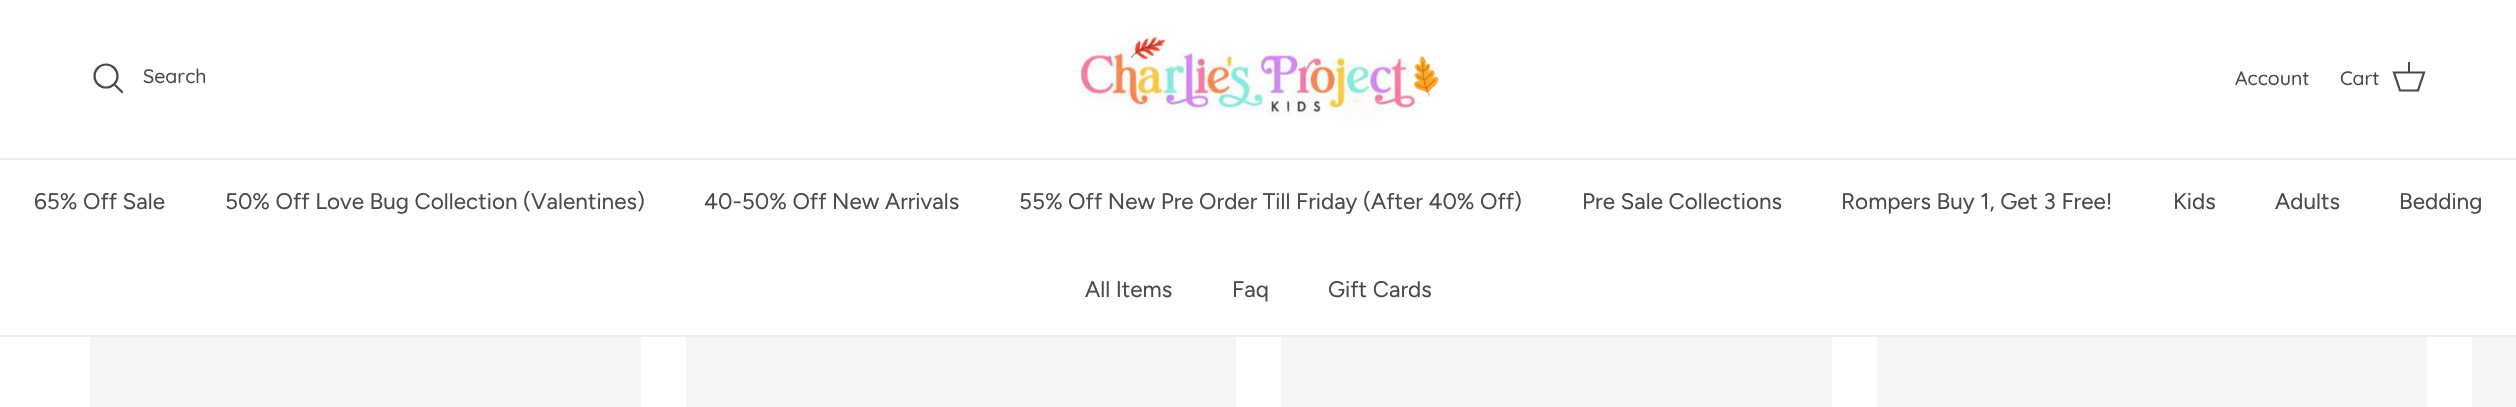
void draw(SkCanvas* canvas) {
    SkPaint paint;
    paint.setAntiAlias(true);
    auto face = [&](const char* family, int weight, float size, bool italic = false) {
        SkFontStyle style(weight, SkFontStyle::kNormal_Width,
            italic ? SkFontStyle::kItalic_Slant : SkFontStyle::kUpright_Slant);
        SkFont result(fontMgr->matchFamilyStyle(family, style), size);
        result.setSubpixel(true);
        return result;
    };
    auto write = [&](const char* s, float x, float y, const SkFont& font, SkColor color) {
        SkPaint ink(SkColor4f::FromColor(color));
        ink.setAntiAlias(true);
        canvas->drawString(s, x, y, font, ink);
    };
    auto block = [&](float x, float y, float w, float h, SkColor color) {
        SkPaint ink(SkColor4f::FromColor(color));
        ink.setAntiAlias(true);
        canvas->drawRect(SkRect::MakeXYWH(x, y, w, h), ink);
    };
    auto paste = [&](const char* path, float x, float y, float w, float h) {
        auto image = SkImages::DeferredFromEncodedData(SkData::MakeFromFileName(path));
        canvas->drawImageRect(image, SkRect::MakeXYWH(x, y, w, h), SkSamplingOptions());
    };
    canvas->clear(SK_ColorWHITE);
    block(0, 158, 2516, 2, SkColorSetRGB(238, 238, 238));
    paint.setStyle(SkPaint::kStroke_Style);
    paint.setStrokeWidth(2.2f);
    paint.setColor(SkColorSetRGB(72, 73, 75));
    canvas->drawCircle(106, 76, 11.5f, paint);
    auto kFont1 = face("Quicksand", 500, 19.5f);
    write("Search", 143, 83, kFont1, SkColorSetRGB(72, 73, 75));
    paint.setStrokeCap(SkPaint::kSquare_Cap);
    canvas->drawPath(SkPathBuilder().moveTo(115.5f, 85.5f).lineTo(122, 92).detach(), paint);
    paste("pic1.png", 1079, 29, 361, 98);
    write("Account", 2235, 85, kFont1, SkColorSetRGB(72, 73, 75));
    write("Cart", 2340, 85, kFont1, SkColorSetRGB(72, 73, 75));
    paint.setStrokeCap(SkPaint::kButt_Cap);
    canvas->drawPath(SkPathBuilder().moveTo(2394, 72.5f).lineTo(2424, 72.5f).lineTo(2418, 90.5f).lineTo(2400, 90.5f).close().detach(), paint);
    block(2408, 62, 2, 11, SkColorSetRGB(72, 73, 75));
    block(0, 335, 2516, 2, SkColorSetRGB(238, 238, 238));
    auto kFont2 = face("Figtree", 400, 22.5f);
    write("65% Off Sale", 34, 209, kFont2, SkColorSetRGB(72, 73, 75));
    write("50% Off Love Bug Collection (Valentines)", 225, 209, kFont2, SkColorSetRGB(72, 73, 75));
    write("40-50% Off New Arrivals", 704, 209, kFont2, SkColorSetRGB(72, 73, 75));
    write("55% Off New Pre Order Till Friday (After 40% Off)", 1019, 209, kFont2, SkColorSetRGB(72, 73, 75));
    write("Pre Sale Collections", 1582, 209, kFont2, SkColorSetRGB(72, 73, 75));
    write("Rompers Buy 1, Get 3 Free!", 1841, 209, kFont2, SkColorSetRGB(72, 73, 75));
    write("Kids", 2173, 209, kFont2, SkColorSetRGB(72, 73, 75));
    write("Adults", 2275, 209, kFont2, SkColorSetRGB(72, 73, 75));
    write("Bedding", 2399, 209, kFont2, SkColorSetRGB(72, 73, 75));
    write("All Items", 1085, 297, kFont2, SkColorSetRGB(72, 73, 75));
    write("Faq", 1232, 297, kFont2, SkColorSetRGB(72, 73, 75));
    write("Gift Cards", 1328, 297, kFont2, SkColorSetRGB(72, 73, 75));
    block(90, 337, 551, 70, SkColorSetRGB(245, 245, 245));
    block(686, 337, 550, 70, SkColorSetRGB(245, 245, 245));
    block(1281, 337, 551, 70, SkColorSetRGB(245, 245, 245));
    block(1877, 337, 550, 70, SkColorSetRGB(245, 245, 245));
    block(2472, 337, 44, 70, SkColorSetRGB(245, 245, 245));
}
